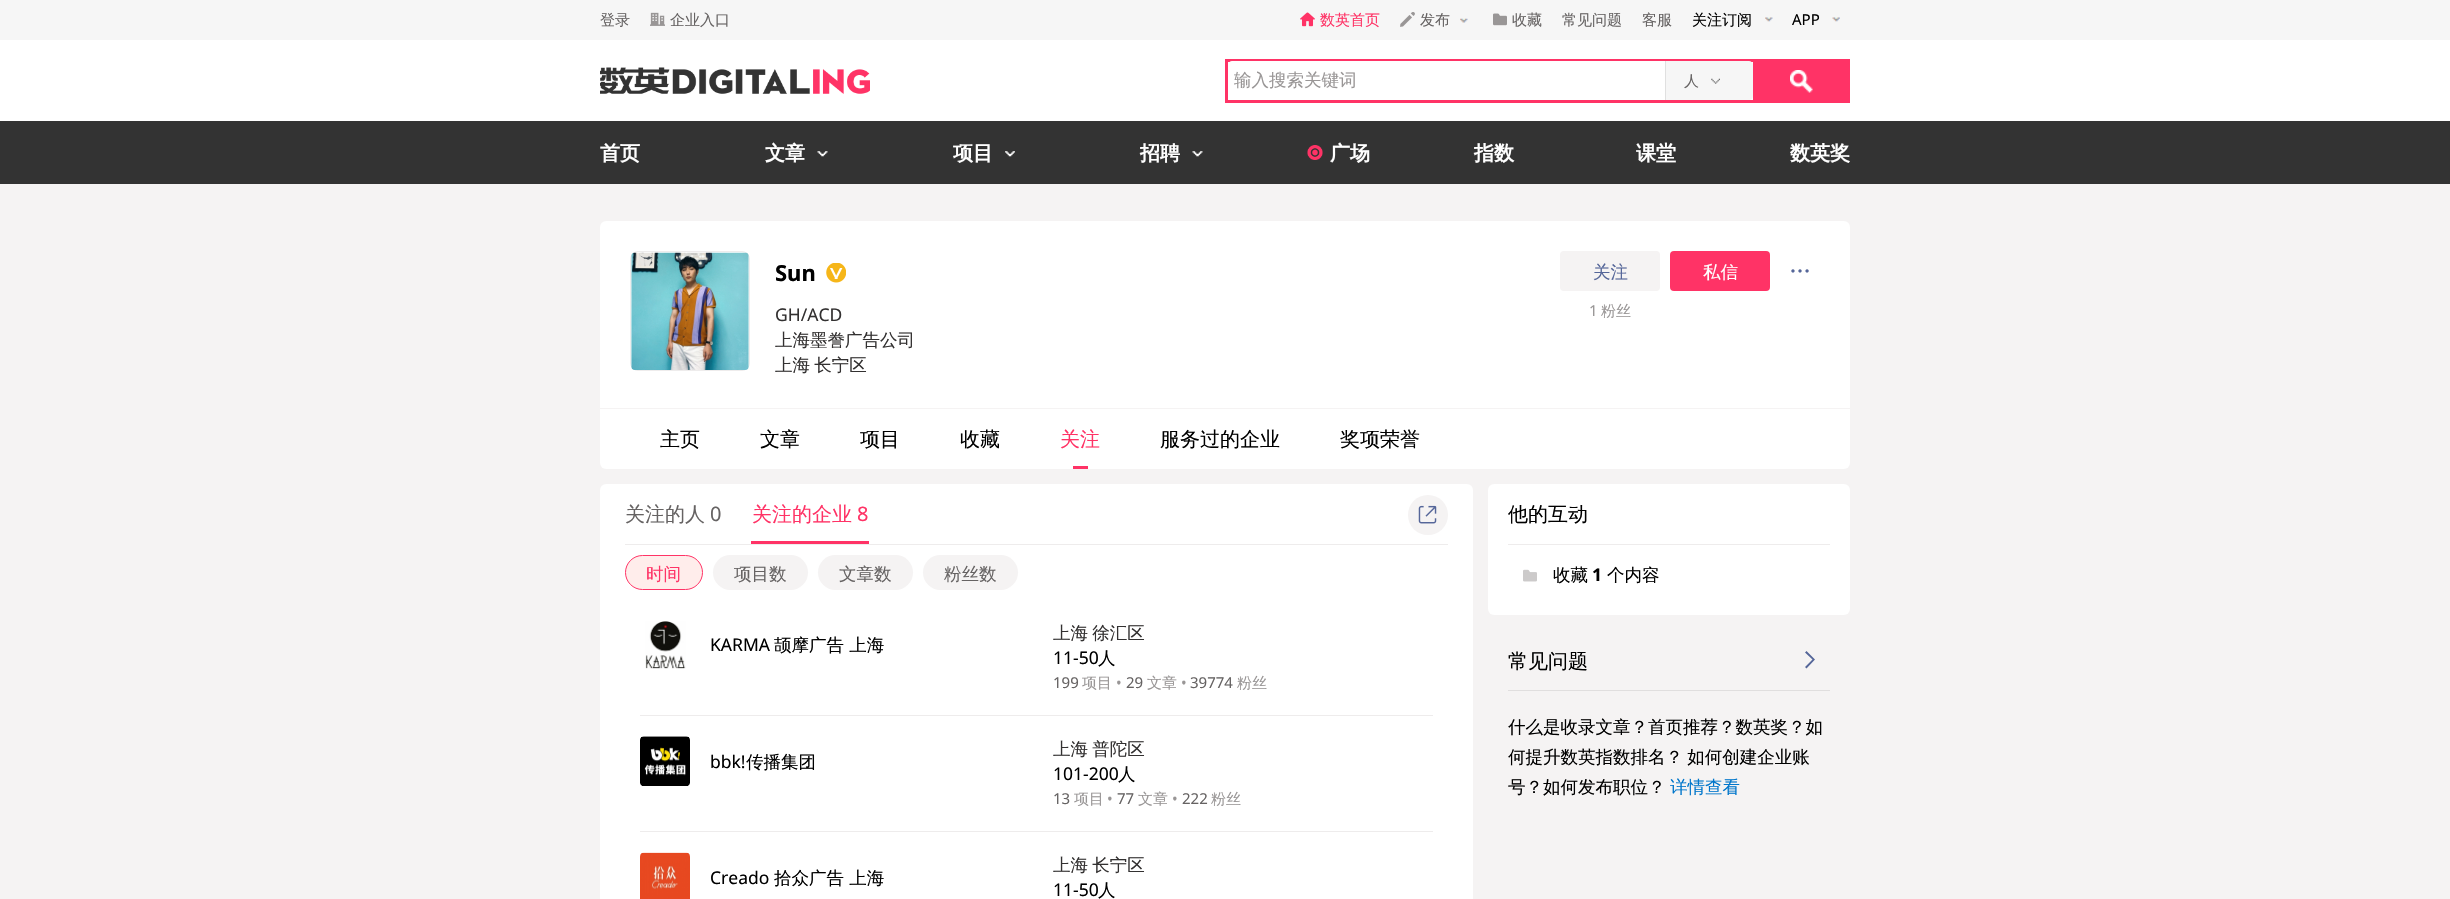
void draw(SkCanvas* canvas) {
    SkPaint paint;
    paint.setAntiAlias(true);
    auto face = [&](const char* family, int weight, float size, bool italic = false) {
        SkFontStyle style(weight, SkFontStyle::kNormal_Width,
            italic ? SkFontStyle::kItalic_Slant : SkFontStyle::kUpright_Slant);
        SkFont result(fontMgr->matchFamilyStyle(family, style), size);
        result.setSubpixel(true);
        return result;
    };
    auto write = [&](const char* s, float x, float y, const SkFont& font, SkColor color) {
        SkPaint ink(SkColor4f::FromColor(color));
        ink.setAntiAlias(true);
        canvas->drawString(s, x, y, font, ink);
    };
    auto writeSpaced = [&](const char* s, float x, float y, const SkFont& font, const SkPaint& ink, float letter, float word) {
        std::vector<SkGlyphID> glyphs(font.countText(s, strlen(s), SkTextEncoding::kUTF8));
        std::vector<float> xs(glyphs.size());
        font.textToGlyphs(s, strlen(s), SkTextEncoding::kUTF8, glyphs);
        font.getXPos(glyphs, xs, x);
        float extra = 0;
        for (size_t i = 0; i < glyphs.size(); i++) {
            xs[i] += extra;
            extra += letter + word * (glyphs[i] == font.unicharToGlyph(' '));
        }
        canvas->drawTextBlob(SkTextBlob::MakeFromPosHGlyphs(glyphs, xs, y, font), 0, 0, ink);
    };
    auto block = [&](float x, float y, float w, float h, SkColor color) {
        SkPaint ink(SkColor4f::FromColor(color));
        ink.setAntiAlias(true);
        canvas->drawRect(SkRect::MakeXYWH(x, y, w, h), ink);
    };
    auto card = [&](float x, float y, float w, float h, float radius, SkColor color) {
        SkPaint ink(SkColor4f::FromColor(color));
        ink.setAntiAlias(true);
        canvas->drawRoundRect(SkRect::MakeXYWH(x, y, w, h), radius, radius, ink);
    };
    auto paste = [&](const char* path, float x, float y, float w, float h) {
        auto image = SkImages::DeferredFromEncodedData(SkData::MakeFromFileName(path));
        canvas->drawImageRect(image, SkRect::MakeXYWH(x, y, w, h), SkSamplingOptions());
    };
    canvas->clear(SkColorSetRGB(245, 243, 243));
    block(0, 40, 2450, 81, SK_ColorWHITE);
    block(0, 0, 2450, 40, SkColorSetRGB(246, 246, 246));
    auto kFont1 = face("WenQuanYi Zen Hei", 500, 15);
    write("登录", 600, 25, kFont1, SkColorSetRGB(102, 99, 99));
    paste("pic1.png", 650, 12, 15, 14);
    write("企业入口", 670, 25, kFont1, SkColorSetRGB(102, 99, 99));
    paste("pic2.png", 1300, 12, 15, 15);
    write("数英首页", 1320, 25, kFont1, SkColorSetRGB(255, 51, 102));
    paste("pic3.png", 1400, 12, 15, 15);
    write("发布", 1420, 25, kFont1, SkColorSetRGB(102, 99, 99));
    paste("pic4.png", 1460, 18, 8, 5);
    paste("pic5.png", 1493, 13, 14, 13);
    write("收藏", 1512, 25, kFont1, SkColorSetRGB(102, 99, 99));
    write("常见问题", 1562, 25, kFont1, SkColorSetRGB(102, 99, 99));
    write("客服", 1642, 25, kFont1, SkColorSetRGB(102, 99, 99));
    write("关注订阅", 1692, 25, kFont1, SK_ColorBLACK);
    paste("pic6.png", 1765, 17, 8, 5);
    auto kFont2 = face("Noto Sans", 400, 15);
    write("APP", 1792, 25, kFont2, SK_ColorBLACK);
    paste("pic7.png", 1832, 17, 8, 5);
    paste("pic8.png", 600, 67, 270, 27);
    block(1225, 59, 528, 3, SkColorSetRGB(255, 51, 102));
    block(1225, 100, 528, 3, SkColorSetRGB(255, 51, 102));
    block(1225, 59, 3, 44, SkColorSetRGB(255, 51, 102));
    paint.setColor(SK_ColorWHITE);
    canvas->drawPath(SkPathBuilder().moveTo(1232, 61).lineTo(1665, 61).lineTo(1665, 100).lineTo(1232, 100).cubicTo(1230, 100, 1228, 98, 1228, 96).lineTo(1228, 65).cubicTo(1228, 63, 1230, 61, 1232, 61).close().detach(), paint);
    auto kFont3 = face("WenQuanYi Zen Hei", 500, 17.5f);
    write("输入搜索关键词", 1234, 86, kFont3, SkColorSetRGB(153, 150, 150));
    paint.setColor(SkColorSetRGB(246, 246, 246));
    canvas->drawPath(SkPathBuilder().moveTo(1665, 61).lineTo(1749, 61).cubicTo(1751, 61, 1753, 63, 1753, 65).lineTo(1753, 96).cubicTo(1753, 98, 1751, 100, 1749, 100).lineTo(1665, 100).close().detach(), paint);
    block(1665, 61, 1, 39, SkColorSetRGB(224, 224, 224));
    write("人", 1684, 86, kFont1, SkColorSetRGB(102, 99, 99));
    paste("pic9.png", 1711, 78, 9, 6);
    block(1753, 59, 97, 44, SkColorSetRGB(255, 51, 102));
    paste("pic10.png", 1790, 70, 23, 23);
    block(0, 121, 2450, 63, SkColorSetRGB(51, 51, 51));
    auto kFont4 = face("WenQuanYi Zen Hei", 700, 20);
    write("首页", 600, 160, kFont4, SK_ColorWHITE);
    write("文章", 765, 160, kFont4, SK_ColorWHITE);
    paste("pic11.png", 817, 151, 11, 6);
    write("项目", 953, 160, kFont4, SK_ColorWHITE);
    paste("pic12.png", 1005, 151, 10, 6);
    write("招聘", 1140, 160, kFont4, SK_ColorWHITE);
    paste("pic11.png", 1192, 151, 11, 6);
    paste("pic13.png", 1307, 145, 16, 15);
    write("广场", 1330, 160, kFont4, SK_ColorWHITE);
    write("指数", 1474, 160, kFont4, SK_ColorWHITE);
    write("课堂", 1636, 160, kFont4, SK_ColorWHITE);
    write("数英奖", 1790, 160, kFont4, SK_ColorWHITE);
    card(600, 221, 1250, 248, 6, SK_ColorWHITE);
    paint.setStyle(SkPaint::kStroke_Style);
    paint.setStrokeWidth(1);
    paint.setColor(SkColorSetRGB(238, 236, 236));
    canvas->drawRoundRect(SkRect::MakeXYWH(630.5f, 251.5f, 119, 119), 7.5f, 7.5f, paint);
    paste("pic14.png", 631, 252, 118, 118);
    auto kFont5 = face("Noto Sans", 700, 22);
    write("Sun", 775, 281, kFont5, SK_ColorBLACK);
    paste("pic15.png", 826, 263, 20, 20);
    auto kFont6 = face("Noto Sans", 400, 17.5f);
    write("GH/ACD", 775, 321, kFont6, SkColorSetRGB(51, 49, 49));
    write("上海墨誊广告公司", 775, 346, kFont3, SkColorSetRGB(51, 49, 49));
    paint.setStyle(SkPaint::kFill_Style);
    paint.setColor(SkColorSetRGB(51, 49, 49));
    writeSpaced("上海 长宁区", 775, 371, kFont3, paint, 0, -1);
    card(1560, 251, 100, 40, 4, SkColorSetRGB(245, 243, 243));
    write("关注", 1593, 278, kFont3, SkColorSetRGB(85, 102, 153));
    card(1670, 251, 100, 40, 4, SkColorSetRGB(255, 51, 102));
    write("私信", 1703, 278, kFont3, SK_ColorWHITE);
    paste("pic16.png", 1791, 269, 18, 4);
    write("1", 1589, 316, kFont2, SkColorSetRGB(153, 150, 150));
    write("粉丝", 1601, 316, kFont1, SkColorSetRGB(153, 150, 150));
    block(600, 408, 1250, 1, SkColorSetRGB(245, 243, 243));
    auto kFont7 = face("WenQuanYi Zen Hei", 500, 20);
    write("主页", 660, 446, kFont7, SK_ColorBLACK);
    write("文章", 760, 446, kFont7, SK_ColorBLACK);
    write("项目", 860, 446, kFont7, SK_ColorBLACK);
    write("收藏", 960, 446, kFont7, SK_ColorBLACK);
    write("关注", 1060, 446, kFont7, SkColorSetRGB(255, 51, 102));
    block(1073, 466, 15, 3, SkColorSetRGB(255, 51, 102));
    write("服务过的企业", 1160, 446, kFont7, SK_ColorBLACK);
    write("奖项荣誉", 1340, 446, kFont7, SK_ColorBLACK);
    card(600, 484, 873, 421, 6, SK_ColorWHITE);
    block(625, 544, 823, 1, SkColorSetRGB(238, 236, 236));
    write("关注的人", 625, 521, kFont7, SkColorSetRGB(102, 99, 99));
    auto kFont8 = face("Noto Sans", 400, 20);
    write("0", 710, 521, kFont8, SkColorSetRGB(102, 99, 99));
    write("关注的企业", 752, 521, kFont7, SkColorSetRGB(255, 51, 102));
    write("8", 857, 521, kFont8, SkColorSetRGB(255, 51, 102));
    block(751, 541, 118, 3, SkColorSetRGB(255, 51, 102));
    paint.setColor(SkColorSetRGB(245, 243, 243));
    canvas->drawCircle(1428, 515, 20, paint);
    paste("pic17.png", 1418, 505, 19, 19);
    paint.setColor(SkColorSetRGB(255, 237, 235));
    canvas->drawRoundRect(SkRect::MakeXYWH(625.5f, 555.5f, 77, 34), 17, 17, paint);
    paint.setStyle(SkPaint::kStroke_Style);
    paint.setColor(SkColorSetRGB(255, 51, 102));
    canvas->drawRoundRect(SkRect::MakeXYWH(625.5f, 555.5f, 77, 34), 17, 17, paint);
    write("时间", 646, 580, kFont3, SkColorSetRGB(255, 51, 102));
    card(713, 555, 95, 35, 17.5f, SkColorSetRGB(245, 243, 243));
    write("项目数", 734, 580, kFont3, SkColorSetRGB(102, 99, 99));
    card(818, 555, 95, 35, 17.5f, SkColorSetRGB(245, 243, 243));
    write("文章数", 839, 580, kFont3, SkColorSetRGB(102, 99, 99));
    card(923, 555, 95, 35, 17.5f, SkColorSetRGB(245, 243, 243));
    write("粉丝数", 944, 580, kFont3, SkColorSetRGB(102, 99, 99));
    block(640, 715, 793, 1, SkColorSetRGB(238, 236, 236));
    paste("pic18.png", 645, 621, 41, 48);
    write("KARMA", 710, 651, kFont6, SK_ColorBLACK);
    write("颉摩广告 上海", 774, 651, kFont3, SK_ColorBLACK);
    paint.setStyle(SkPaint::kFill_Style);
    paint.setColor(SkColorSetRGB(51, 49, 49));
    writeSpaced("上海 徐汇区", 1053, 639, kFont3, paint, 0, -1);
    write("11-50", 1053, 664, kFont6, SK_ColorBLACK);
    write("人", 1098, 664, kFont3, SK_ColorBLACK);
    write("199", 1053, 688, kFont2, SkColorSetRGB(102, 99, 99));
    write("项目", 1082, 688, kFont1, SkColorSetRGB(153, 150, 150));
    write("•", 1116, 688, kFont2, SkColorSetRGB(153, 150, 150));
    write("29", 1126, 688, kFont2, SkColorSetRGB(102, 99, 99));
    write("文章", 1147, 688, kFont1, SkColorSetRGB(153, 150, 150));
    write("•", 1181, 688, kFont2, SkColorSetRGB(153, 150, 150));
    write("39774", 1190, 688, kFont2, SkColorSetRGB(102, 99, 99));
    write("粉丝", 1237, 688, kFont1, SkColorSetRGB(153, 150, 150));
    block(640, 831, 793, 1, SkColorSetRGB(238, 236, 236));
    paste("pic19.png", 640, 736, 50, 50);
    write("bbk!", 710, 768, kFont6, SK_ColorBLACK);
    write("传播集团", 746, 768, kFont3, SK_ColorBLACK);
    writeSpaced("上海 普陀区", 1053, 755, kFont3, paint, 0, -1);
    write("101-200", 1053, 780, kFont6, SK_ColorBLACK);
    write("人", 1118, 780, kFont3, SK_ColorBLACK);
    write("13", 1053, 804, kFont2, SkColorSetRGB(102, 99, 99));
    write("项目", 1074, 804, kFont1, SkColorSetRGB(153, 150, 150));
    write("•", 1107, 804, kFont2, SkColorSetRGB(153, 150, 150));
    write("77", 1117, 804, kFont2, SkColorSetRGB(102, 99, 99));
    write("文章", 1138, 804, kFont1, SkColorSetRGB(153, 150, 150));
    write("•", 1172, 804, kFont2, SkColorSetRGB(153, 150, 150));
    write("222", 1182, 804, kFont2, SkColorSetRGB(102, 99, 99));
    write("粉丝", 1211, 804, kFont1, SkColorSetRGB(153, 150, 150));
    paste("pic20.png", 640, 852, 50, 47);
    write("Creado", 710, 884, kFont6, SK_ColorBLACK);
    write("拾众广告 上海", 774, 884, kFont3, SK_ColorBLACK);
    writeSpaced("上海 长宁区", 1053, 871, kFont3, paint, 0, -1);
    write("11-50", 1053, 896, kFont6, SK_ColorBLACK);
    write("人", 1098, 896, kFont3, SK_ColorBLACK);
    card(1488, 484, 362, 131, 6, SK_ColorWHITE);
    block(1508, 544, 322, 1, SkColorSetRGB(238, 236, 236));
    write("他的互动", 1508, 521, kFont7, SK_ColorBLACK);
    paste("pic21.png", 1523, 569, 14, 13);
    write("收藏", 1553, 581, kFont3, SK_ColorBLACK);
    auto kFont9 = face("Noto Sans", 700, 17.5f);
    write("1", 1592, 581, kFont9, SK_ColorBLACK);
    write("个内容", 1607, 581, kFont3, SK_ColorBLACK);
    block(1508, 690, 322, 1, SkColorSetRGB(224, 222, 222));
    write("常见问题", 1508, 668, kFont7, SK_ColorBLACK);
    paint.setColor(SkColorSetRGB(85, 102, 153));
    canvas->drawPath(SkPathBuilder().moveTo(1806.5f, 668.5f).lineTo(1805, 667).lineTo(1812.5f, 659.5f).lineTo(1805, 652.5f).lineTo(1806.5f, 651).lineTo(1815, 659.5f).close().detach(), paint);
    write("什么是收录文章？首页推荐？数英奖？如", 1508, 733, kFont3, SK_ColorBLACK);
    paint.setColor(SK_ColorBLACK);
    writeSpaced("何提升数英指数排名？ 如何创建企业账", 1508, 763, kFont3, paint, 0, -1);
    write("号？如何发布职位？", 1508, 793, kFont3, SK_ColorBLACK);
    write("详情查看", 1670, 793, kFont3, SkColorSetRGB(0, 118, 203));
}
